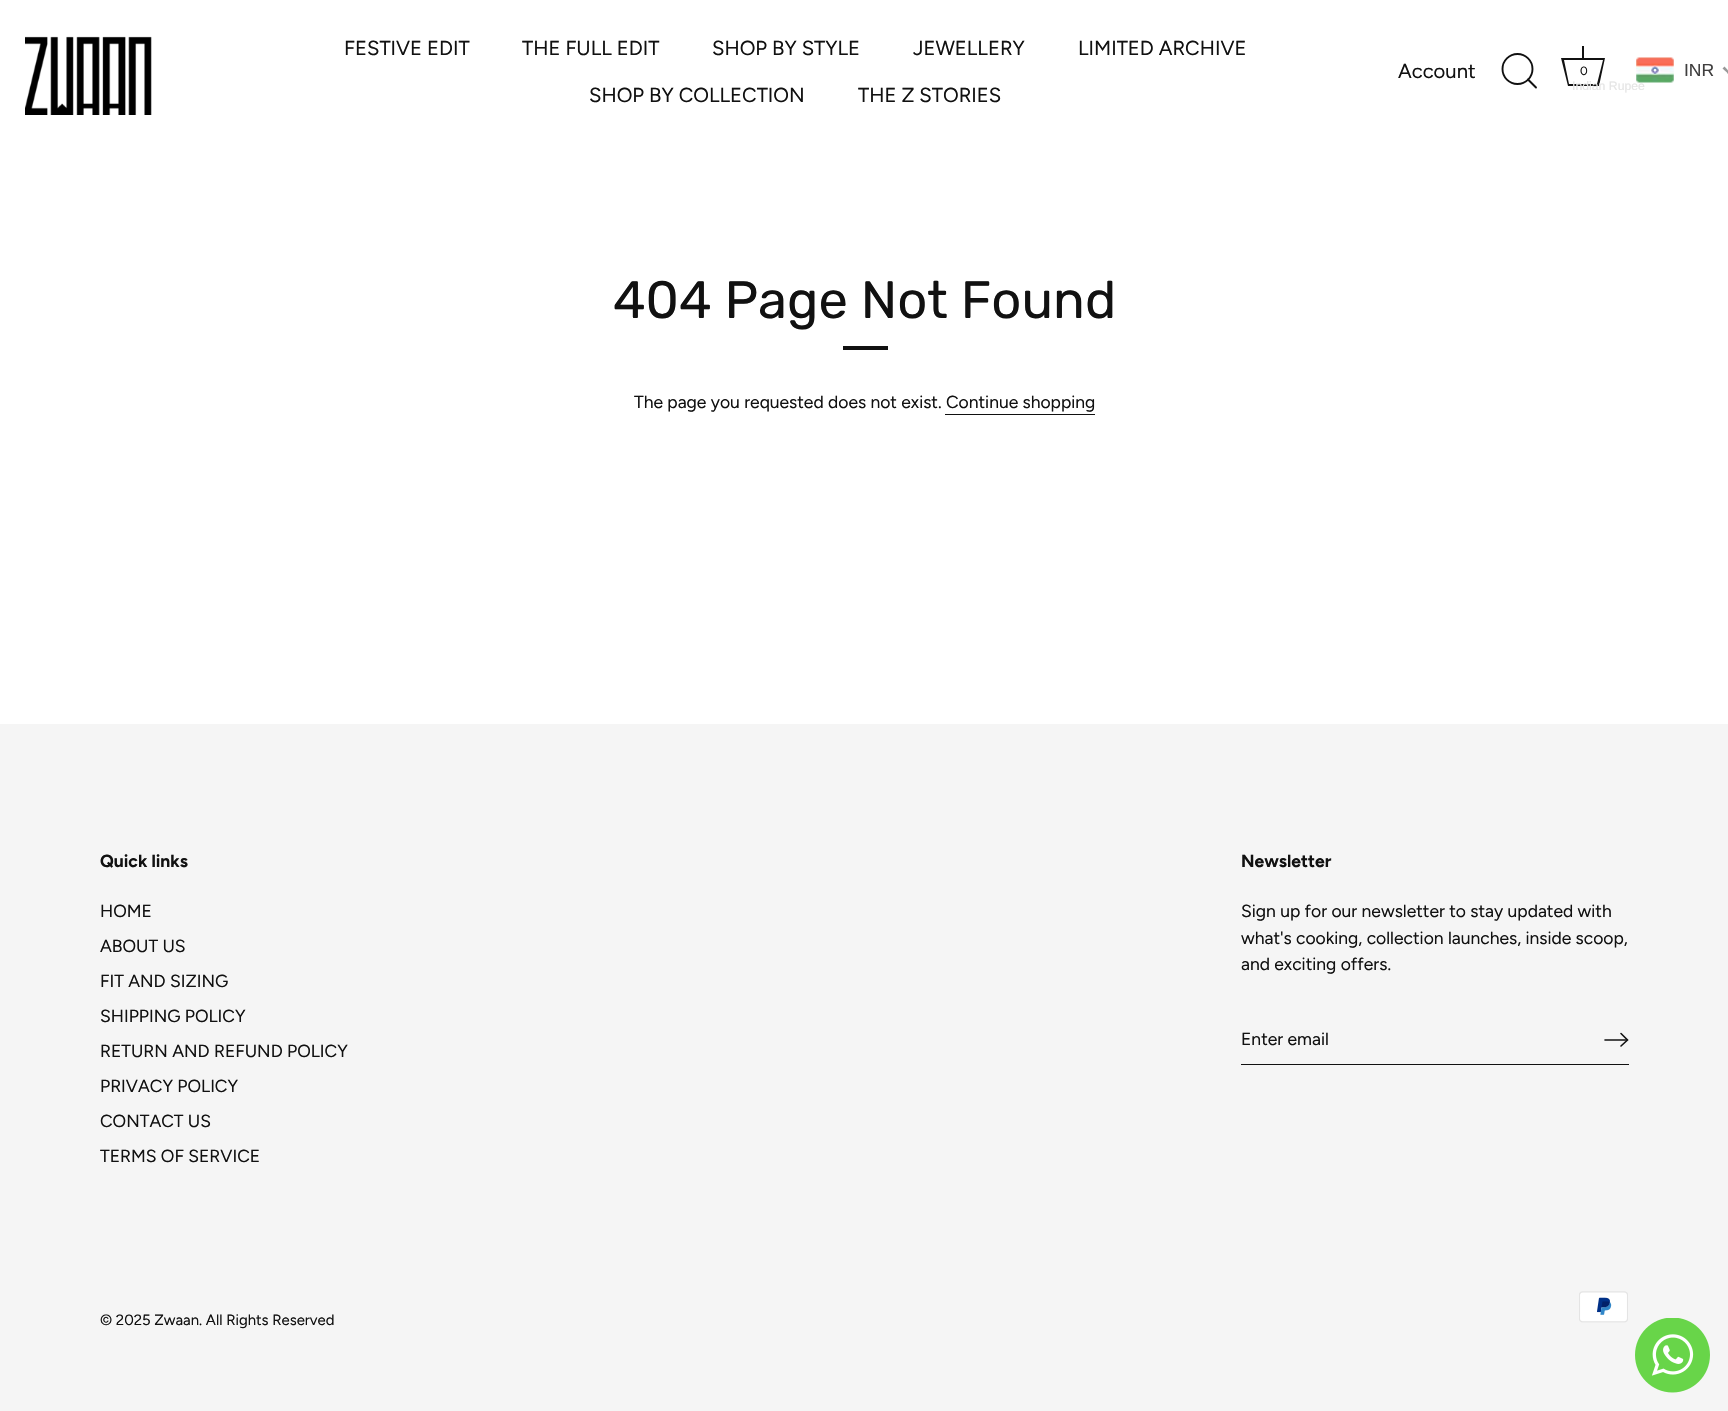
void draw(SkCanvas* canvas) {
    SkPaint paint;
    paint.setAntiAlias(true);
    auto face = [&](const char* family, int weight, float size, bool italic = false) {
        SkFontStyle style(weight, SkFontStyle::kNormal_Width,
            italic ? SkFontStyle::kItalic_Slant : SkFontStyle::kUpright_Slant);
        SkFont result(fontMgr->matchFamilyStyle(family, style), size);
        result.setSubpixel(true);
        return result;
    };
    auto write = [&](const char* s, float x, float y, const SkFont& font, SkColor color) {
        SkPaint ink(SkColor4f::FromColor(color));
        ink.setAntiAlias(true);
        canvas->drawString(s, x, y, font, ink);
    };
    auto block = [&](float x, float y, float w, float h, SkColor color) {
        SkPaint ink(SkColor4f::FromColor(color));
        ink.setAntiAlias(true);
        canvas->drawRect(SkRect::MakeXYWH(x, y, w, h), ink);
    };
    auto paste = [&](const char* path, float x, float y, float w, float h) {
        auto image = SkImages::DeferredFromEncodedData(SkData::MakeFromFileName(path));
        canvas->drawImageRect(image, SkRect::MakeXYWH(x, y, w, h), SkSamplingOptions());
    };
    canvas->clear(SK_ColorWHITE);
    paste("pic1.png", 25, 36, 127, 79);
    auto kFont1 = face("Figtree", 400, 20.25f);
    write("FESTIVE EDIT", 344, 55, kFont1, SkColorSetRGB(17, 17, 17));
    write("THE FULL EDIT", 522, 55, kFont1, SkColorSetRGB(17, 17, 17));
    write("SHOP BY STYLE", 712, 55, kFont1, SkColorSetRGB(17, 17, 17));
    write("JEWELLERY", 913, 55, kFont1, SkColorSetRGB(17, 17, 17));
    write("LIMITED ARCHIVE", 1078, 55, kFont1, SkColorSetRGB(17, 17, 17));
    write("SHOP BY COLLECTION", 589, 102, kFont1, SkColorSetRGB(17, 17, 17));
    write("THE Z STORIES", 858, 102, kFont1, SkColorSetRGB(17, 17, 17));
    write("Account", 1398, 78, kFont1, SkColorSetRGB(17, 17, 17));
    paint.setStyle(SkPaint::kStroke_Style);
    paint.setStrokeWidth(1.9f);
    paint.setColor(SkColorSetRGB(17, 17, 17));
    canvas->drawCircle(1517.5f, 69, 15, paint);
    paint.setStrokeCap(SkPaint::kRound_Cap);
    paint.setStrokeJoin(SkPaint::kRound_Join);
    canvas->drawPath(SkPathBuilder().moveTo(1536, 87.5f).lineTo(1528, 79.5f).detach(), paint);
    paste("pic2.png", 1636, 57, 38, 26);
    auto kFont2 = face("Liberation Sans", 400, 17.5f);
    write("INR", 1684, 76, kFont2, SkColorSetRGB(64, 63, 63));
    paint.setStyle(SkPaint::kFill_Style);
    paint.setColor(SkColorSetRGB(153, 153, 153));
    canvas->drawPath(SkPathBuilder().moveTo(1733.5f, 66.5f).lineTo(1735, 68.5f).lineTo(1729, 74.5f).lineTo(1727, 73).close().detach(), paint);
    canvas->drawPath(SkPathBuilder().moveTo(1724.5f, 66.5f).lineTo(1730.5f, 73).lineTo(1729, 74.5f).lineTo(1722.5f, 68.5f).close().detach(), paint);
    paint.setColor(SkColorSetRGB(17, 17, 17));
    canvas->drawPath(SkPathBuilder().moveTo(1603, 60).lineTo(1597, 84).lineTo(1569, 84).lineTo(1564, 60).lineTo(1603, 60).moveTo(1605, 58).lineTo(1561, 58).lineTo(1568, 86).lineTo(1599, 86).close().detach(), paint);
    auto kFont3 = face("Liberation Sans", 400, 12.25f);
    write("Indian Rupee", 1572, 90, kFont3, SkColorSetRGB(229, 229, 229));
    block(1582, 46, 2, 12, SkColorSetRGB(17, 17, 17));
    auto kFont4 = face("Figtree", 400, 12);
    write("0", 1580, 75, kFont4, SkColorSetRGB(17, 17, 17));
    auto kFont5 = face("Rubik", 400, 52.5f);
    write("404 Page Not Found", 613, 318, kFont5, SkColorSetRGB(17, 17, 17));
    block(843, 346, 45, 4, SkColorSetRGB(17, 17, 17));
    auto kFont6 = face("Figtree", 400, 17.5f);
    write("The page you requested does not exist. Continue shopping", 634, 408, kFont6, SkColorSetRGB(17, 17, 17));
    block(945, 414, 150, 1, SkColorSetRGB(17, 17, 17));
    block(0, 724, 1728, 687, SkColorSetRGB(245, 245, 245));
    auto kFont7 = face("Figtree", 700, 17.5f);
    write("Quick links", 100, 867, kFont7, SkColorSetRGB(17, 17, 17));
    write("HOME", 100, 917, kFont6, SkColorSetRGB(17, 17, 17));
    write("ABOUT US", 100, 952, kFont6, SkColorSetRGB(17, 17, 17));
    write("FIT AND SIZING", 100, 987, kFont6, SkColorSetRGB(17, 17, 17));
    write("SHIPPING POLICY", 100, 1022, kFont6, SkColorSetRGB(17, 17, 17));
    write("RETURN AND REFUND POLICY", 100, 1057, kFont6, SkColorSetRGB(17, 17, 17));
    write("PRIVACY POLICY", 100, 1092, kFont6, SkColorSetRGB(17, 17, 17));
    write("CONTACT US", 100, 1127, kFont6, SkColorSetRGB(17, 17, 17));
    write("TERMS OF SERVICE", 100, 1162, kFont6, SkColorSetRGB(17, 17, 17));
    write("Newsletter", 1241, 867, kFont7, SkColorSetRGB(17, 17, 17));
    write("Sign up for our newsletter to stay updated with", 1241, 917, kFont6, SkColorSetRGB(17, 17, 17));
    write("what's cooking, collection launches, inside scoop,", 1241, 944, kFont6, SkColorSetRGB(17, 17, 17));
    write("and exciting offers.", 1241, 970, kFont6, SkColorSetRGB(17, 17, 17));
    block(1241, 1064, 388, 1, SkColorSetRGB(17, 17, 17));
    write("Enter email", 1241, 1045, kFont6, SkColorSetRGB(17, 17, 17));
    paint.setStyle(SkPaint::kStroke_Style);
    paint.setStrokeWidth(1.6f);
    paint.setStrokeJoin(SkPaint::kMiter_Join);
    canvas->drawPath(SkPathBuilder().moveTo(1621, 1046).lineTo(1627.5f, 1040).lineTo(1621, 1033.5f).detach(), paint);
    paint.setStrokeJoin(SkPaint::kRound_Join);
    canvas->drawPath(SkPathBuilder().moveTo(1626.5f, 1040).lineTo(1605, 1040).detach(), paint);
    auto kFont8 = face("Figtree", 400, 14.9f);
    write("© 2025 Zwaan. All Rights Reserved", 100, 1325, kFont8, SkColorSetRGB(17, 17, 17));
    paste("pic3.png", 1579, 1291, 49, 32);
    paste("pic4.png", 1635, 1318, 75, 75);
}
